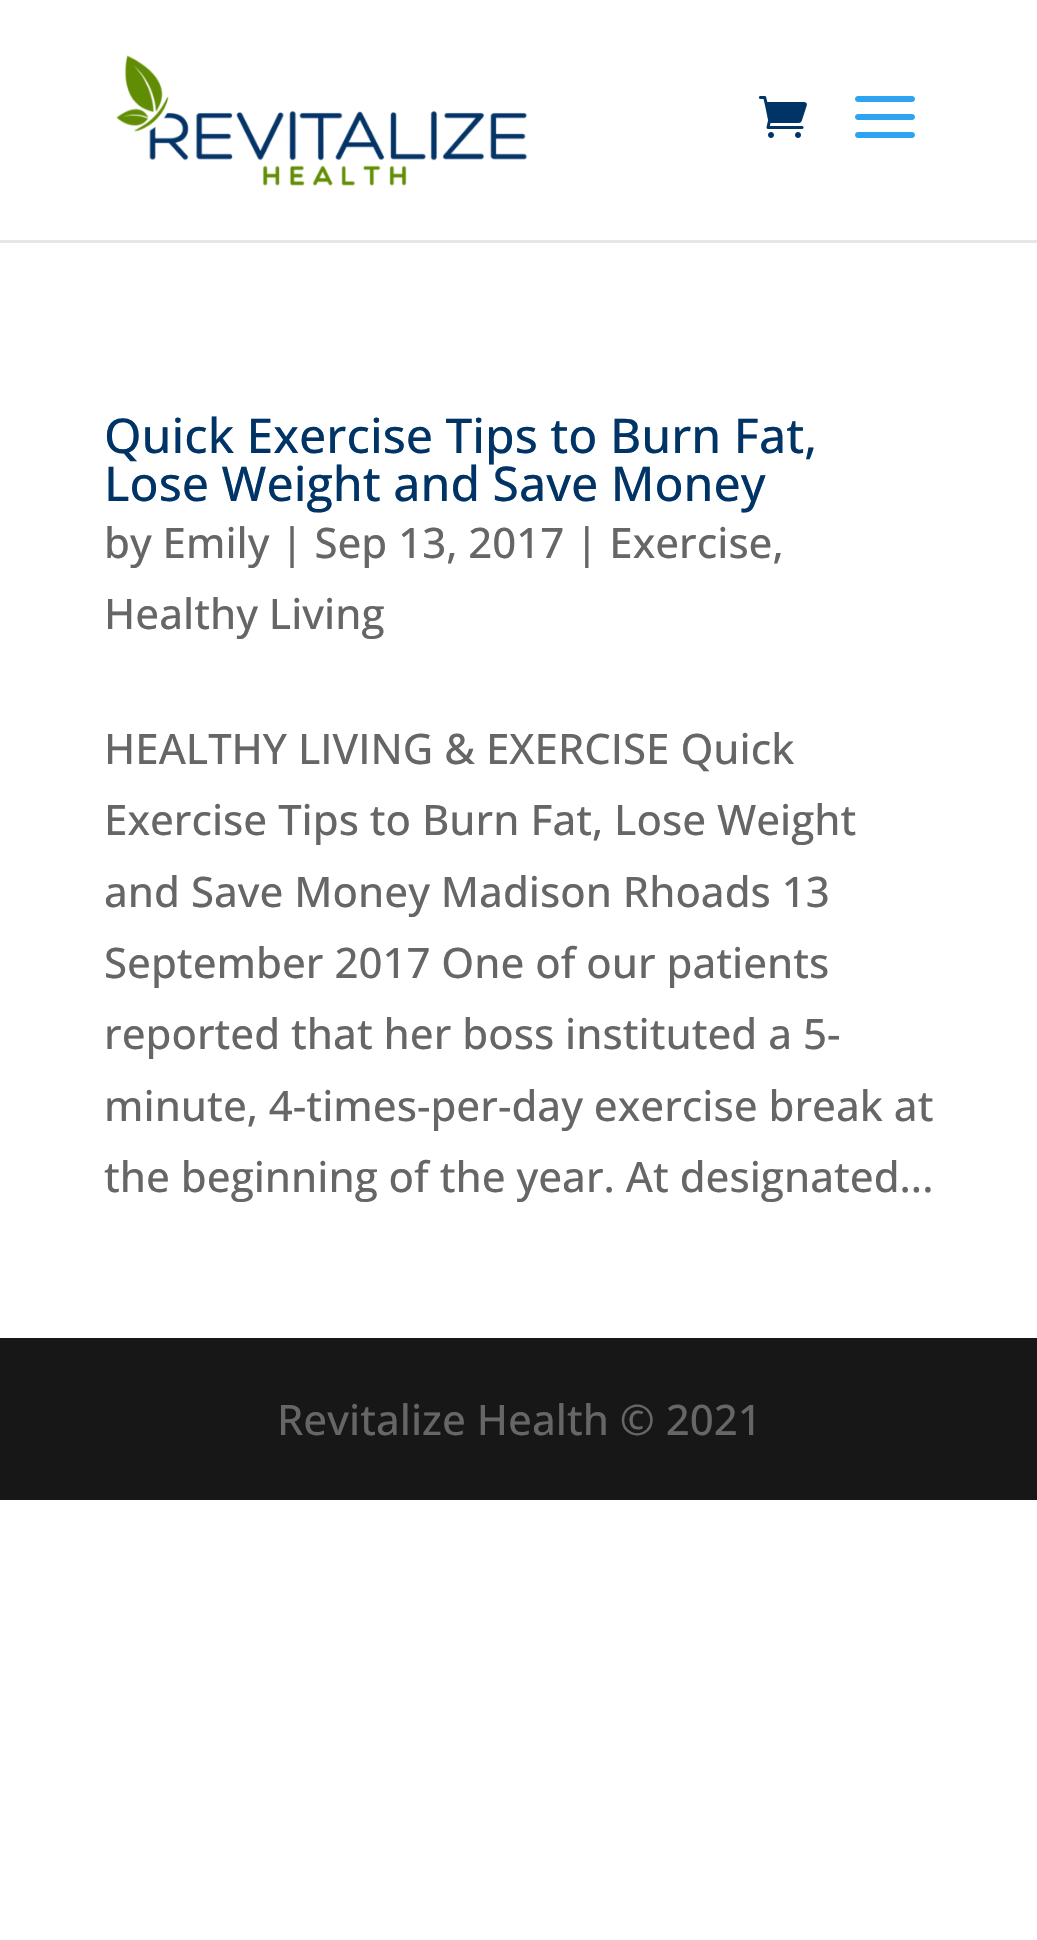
void draw(SkCanvas* canvas) {
    SkPaint paint;
    paint.setAntiAlias(true);
    auto face = [&](const char* family, int weight, float size, bool italic = false) {
        SkFontStyle style(weight, SkFontStyle::kNormal_Width,
            italic ? SkFontStyle::kItalic_Slant : SkFontStyle::kUpright_Slant);
        SkFont result(fontMgr->matchFamilyStyle(family, style), size);
        result.setSubpixel(true);
        return result;
    };
    auto write = [&](const char* s, float x, float y, const SkFont& font, SkColor color) {
        SkPaint ink(SkColor4f::FromColor(color));
        ink.setAntiAlias(true);
        canvas->drawString(s, x, y, font, ink);
    };
    auto block = [&](float x, float y, float w, float h, SkColor color) {
        SkPaint ink(SkColor4f::FromColor(color));
        ink.setAntiAlias(true);
        canvas->drawRect(SkRect::MakeXYWH(x, y, w, h), ink);
    };
    auto paste = [&](const char* path, float x, float y, float w, float h) {
        auto image = SkImages::DeferredFromEncodedData(SkData::MakeFromFileName(path));
        canvas->drawImageRect(image, SkRect::MakeXYWH(x, y, w, h), SkSamplingOptions());
    };
    canvas->clear(SK_ColorWHITE);
    block(0, 240, 1037, 3, SkColorSetRGB(230, 230, 230));
    paste("pic1.png", 116, 55, 412, 131);
    paste("pic2.png", 758, 96, 49, 42);
    paste("pic3.png", 855, 96, 60, 42);
    auto kFont1 = face("Open Sans", 500, 48);
    write("Quick Exercise Tips to Burn Fat,", 104, 453, kFont1, SkColorSetRGB(0, 52, 102));
    write("Lose Weight and Save Money", 104, 501, kFont1, SkColorSetRGB(0, 52, 102));
    auto kFont2 = face("Open Sans", 500, 42);
    write("by Emily | Sep 13, 2017 | Exercise,", 104, 558, kFont2, SkColorSetRGB(102, 102, 102));
    write("Healthy Living", 104, 629, kFont2, SkColorSetRGB(102, 102, 102));
    write("HEALTHY LIVING & EXERCISE Quick", 104, 764, kFont2, SkColorSetRGB(102, 102, 102));
    write("Exercise Tips to Burn Fat, Lose Weight", 104, 835, kFont2, SkColorSetRGB(102, 102, 102));
    write("and Save Money Madison Rhoads 13", 104, 907, kFont2, SkColorSetRGB(102, 102, 102));
    write("September 2017 One of our patients", 104, 978, kFont2, SkColorSetRGB(102, 102, 102));
    write("reported that her boss instituted a 5-", 104, 1049, kFont2, SkColorSetRGB(102, 102, 102));
    write("minute, 4-times-per-day exercise break at", 104, 1121, kFont2, SkColorSetRGB(102, 102, 102));
    write("the beginning of the year. At designated...", 104, 1192, kFont2, SkColorSetRGB(102, 102, 102));
    block(0, 1338, 1037, 162, SkColorSetRGB(23, 23, 23));
    write("Revitalize Health © 2021", 277, 1435, kFont2, SkColorSetRGB(102, 102, 102));
}
